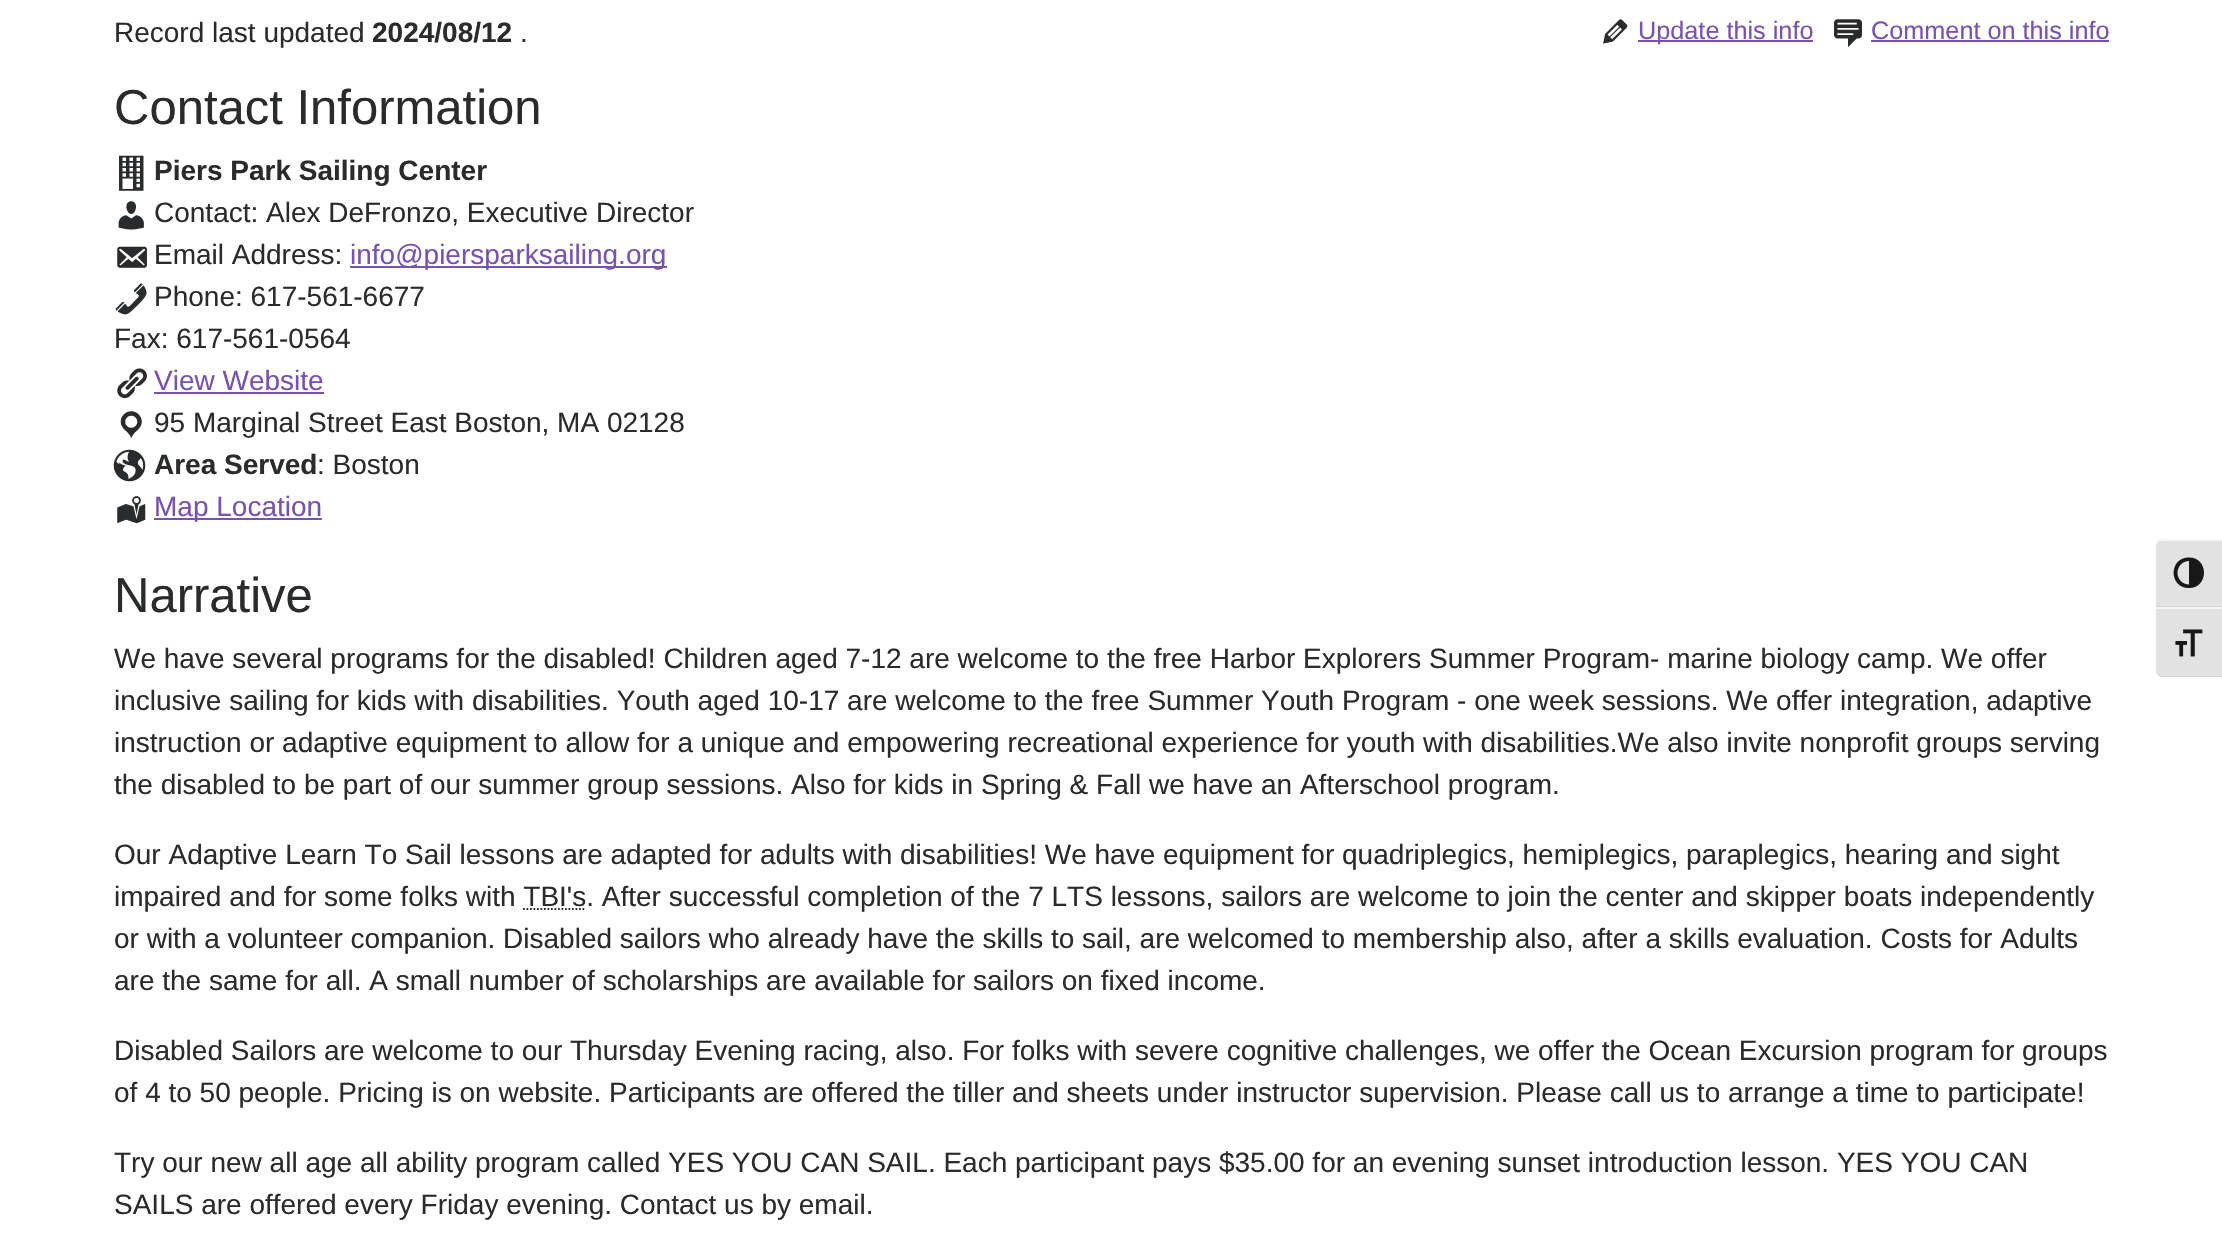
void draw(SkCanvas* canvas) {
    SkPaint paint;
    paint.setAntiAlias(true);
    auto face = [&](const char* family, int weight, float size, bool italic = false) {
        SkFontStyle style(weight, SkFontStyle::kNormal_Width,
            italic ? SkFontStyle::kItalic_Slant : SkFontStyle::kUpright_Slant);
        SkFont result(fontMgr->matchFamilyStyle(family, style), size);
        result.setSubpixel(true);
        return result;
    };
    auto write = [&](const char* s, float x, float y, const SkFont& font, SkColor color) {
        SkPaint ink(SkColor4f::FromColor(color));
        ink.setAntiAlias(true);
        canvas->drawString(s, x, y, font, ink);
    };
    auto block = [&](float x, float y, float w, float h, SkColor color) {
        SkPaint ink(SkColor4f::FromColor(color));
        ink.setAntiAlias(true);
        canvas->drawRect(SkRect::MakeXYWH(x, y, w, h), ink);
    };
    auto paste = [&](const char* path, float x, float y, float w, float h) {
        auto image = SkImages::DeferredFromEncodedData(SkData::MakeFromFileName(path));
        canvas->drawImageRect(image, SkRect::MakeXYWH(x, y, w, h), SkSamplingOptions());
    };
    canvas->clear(SK_ColorWHITE);
    auto kFont1 = face("Liberation Sans", 400, 28);
    write("Record last updated", 114, 42, kFont1, SkColorSetRGB(41, 43, 44));
    auto kFont2 = face("Liberation Sans", 700, 28);
    write("2024/08/12", 372, 42, kFont2, SkColorSetRGB(41, 43, 44));
    write(".", 520, 42, kFont1, SkColorSetRGB(41, 43, 44));
    paste("pic1.png", 1603, 19, 25, 25);
    block(1638, 40, 175, 2, SkColorSetRGB(120, 82, 178));
    auto kFont3 = face("Liberation Sans", 400, 25.25f);
    write("Update this info", 1638, 39, kFont3, SkColorSetRGB(120, 82, 178));
    paste("pic2.png", 1834, 19, 28, 29);
    write("Comment on this info", 1871, 39, kFont3, SkColorSetRGB(120, 82, 178));
    block(1871, 40, 238, 2, SkColorSetRGB(120, 82, 178));
    auto kFont4 = face("Liberation Sans", 400, 49);
    write("Contact Information", 114, 124, kFont4, SkColorSetRGB(41, 43, 44));
    paste("pic3.png", 119, 155, 25, 36);
    write("Piers Park Sailing Center", 154, 180, kFont2, SkColorSetRGB(41, 43, 44));
    paste("pic4.png", 118, 201, 26, 29);
    write("Contact: Alex DeFronzo, Executive Director", 154, 222, kFont1, SkColorSetRGB(41, 43, 44));
    paste("pic5.png", 117, 246, 30, 22);
    write("Email Address:", 154, 264, kFont1, SkColorSetRGB(41, 43, 44));
    block(350, 266, 317, 2, SkColorSetRGB(120, 82, 178));
    write("info@piersparksailing.org", 350, 264, kFont1, SkColorSetRGB(120, 82, 178));
    paste("pic6.png", 115, 283, 32, 32);
    write("Phone: 617-561-6677", 154, 306, kFont1, SkColorSetRGB(41, 43, 44));
    write("Fax: 617-561-0564", 114, 348, kFont1, SkColorSetRGB(41, 43, 44));
    paste("pic7.png", 117, 368, 30, 31);
    write("View Website", 154, 390, kFont1, SkColorSetRGB(120, 82, 178));
    block(154, 392, 170, 2, SkColorSetRGB(120, 82, 178));
    paste("pic8.png", 120, 411, 22, 28);
    write("95 Marginal Street East Boston, MA 02128", 154, 432, kFont1, SkColorSetRGB(41, 43, 44));
    paste("pic9.png", 113, 449, 33, 33);
    write("Area Served", 154, 474, kFont2, SkColorSetRGB(41, 43, 44));
    write(": Boston", 317, 474, kFont1, SkColorSetRGB(41, 43, 44));
    paste("pic10.png", 117, 496, 29, 28);
    block(154, 518, 168, 2, SkColorSetRGB(120, 82, 178));
    write("Map Location", 154, 516, kFont1, SkColorSetRGB(120, 82, 178));
    write("Narrative", 114, 612, kFont4, SkColorSetRGB(41, 43, 44));
    write("We have several programs for the disabled! Children aged 7-12 are welcome to the free Harbor Explorers Summer Program- marine biology camp. We offer", 114, 668, kFont1, SkColorSetRGB(41, 43, 44));
    write("inclusive sailing for kids with disabilities. Youth aged 10-17 are welcome to the free Summer Youth Program - one week sessions. We offer integration, adaptive", 114, 710, kFont1, SkColorSetRGB(41, 43, 44));
    write("instruction or adaptive equipment to allow for a unique and empowering recreational experience for youth with disabilities.We also invite nonprofit groups serving", 114, 752, kFont1, SkColorSetRGB(41, 43, 44));
    write("the disabled to be part of our summer group sessions. Also for kids in Spring & Fall we have an Afterschool program.", 114, 794, kFont1, SkColorSetRGB(41, 43, 44));
    write("Our Adaptive Learn To Sail lessons are adapted for adults with disabilities! We have equipment for quadriplegics, hemiplegics, paraplegics, hearing and sight", 114, 864, kFont1, SkColorSetRGB(41, 43, 44));
    write("impaired and for some folks with TBI's. After successful completion of the 7 LTS lessons, sailors are welcome to join the center and skipper boats independently", 114, 906, kFont1, SkColorSetRGB(41, 43, 44));
    paint.setStyle(SkPaint::kStroke_Style);
    paint.setStrokeWidth(1.8f);
    paint.setColor(SkColorSetRGB(41, 43, 44));
    paint.setPathEffect(SkDashPathEffect::Make({{1.75f, 1.75f}}, 0));
    canvas->drawPath(SkPathBuilder().moveTo(523, 909).lineTo(586, 909).detach(), paint);
    paint.setPathEffect(nullptr);
    write("or with a volunteer companion. Disabled sailors who already have the skills to sail, are welcomed to membership also, after a skills evaluation. Costs for Adults", 114, 948, kFont1, SkColorSetRGB(41, 43, 44));
    write("are the same for all. A small number of scholarships are available for sailors on fixed income.", 114, 990, kFont1, SkColorSetRGB(41, 43, 44));
    write("Disabled Sailors are welcome to our Thursday Evening racing, also. For folks with severe cognitive challenges, we offer the Ocean Excursion program for groups", 114, 1060, kFont1, SkColorSetRGB(41, 43, 44));
    write("of 4 to 50 people. Pricing is on website. Participants are offered the tiller and sheets under instructor supervision. Please call us to arrange a time to participate!", 114, 1102, kFont1, SkColorSetRGB(41, 43, 44));
    write("Try our new all age all ability program called YES YOU CAN SAIL. Each participant pays $35.00 for an evening sunset introduction lesson. YES YOU CAN", 114, 1172, kFont1, SkColorSetRGB(41, 43, 44));
    write("SAILS are offered every Friday evening. Contact us by email.", 114, 1214, kFont1, SkColorSetRGB(41, 43, 44));
    paint.setStyle(SkPaint::kFill_Style);
    paint.setColor(SkColorSetRGB(226, 226, 226));
    canvas->drawPath(SkPathBuilder().moveTo(2163, 539).lineTo(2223, 539).lineTo(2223, 607).lineTo(2156, 607).lineTo(2156, 546).cubicTo(2156, 542, 2159, 539, 2163, 539).close().detach(), paint);
    paint.setColor(SkColorSetRGB(245, 245, 245));
    canvas->drawPath(SkPathBuilder().moveTo(2163, 539).cubicTo(2159, 539, 2156, 542, 2156, 546).cubicTo(2156, 543, 2159, 541, 2163, 541).lineTo(2222, 541).lineTo(2222, 539).close().detach(), paint);
    block(2156, 606, 66, 1, SkColorSetRGB(210, 210, 210));
    paint.setColor(SkColorSetRGB(24, 24, 24));
    canvas->drawPath(SkPathBuilder().moveTo(2189, 557.5f).cubicTo(2168.5f, 557.5f, 2168.5f, 588, 2189, 588).cubicTo(2209, 588, 2209, 557.5f, 2189, 557.5f).close().moveTo(2177.5f, 573).cubicTo(2177.5f, 566.5f, 2182.5f, 561, 2189, 561).lineTo(2189, 584.5f).cubicTo(2182.5f, 584.5f, 2177.5f, 579, 2177.5f, 573).close().detach(), paint);
    paint.setColor(SkColorSetRGB(226, 226, 226));
    canvas->drawPath(SkPathBuilder().moveTo(2156, 607).lineTo(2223, 607).lineTo(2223, 677).lineTo(2163, 677).cubicTo(2159, 677, 2156, 674, 2156, 670).close().detach(), paint);
    block(2156, 607, 66, 2, SkColorSetRGB(245, 245, 245));
    paint.setColor(SkColorSetRGB(210, 210, 210));
    canvas->drawPath(SkPathBuilder().moveTo(2222, 677).lineTo(2222, 676).lineTo(2163, 676).cubicTo(2159, 676, 2156, 673, 2156, 670).cubicTo(2156, 674, 2159, 677, 2163, 677).close().detach(), paint);
    paste("pic11.png", 2175, 629, 28, 28);
}
